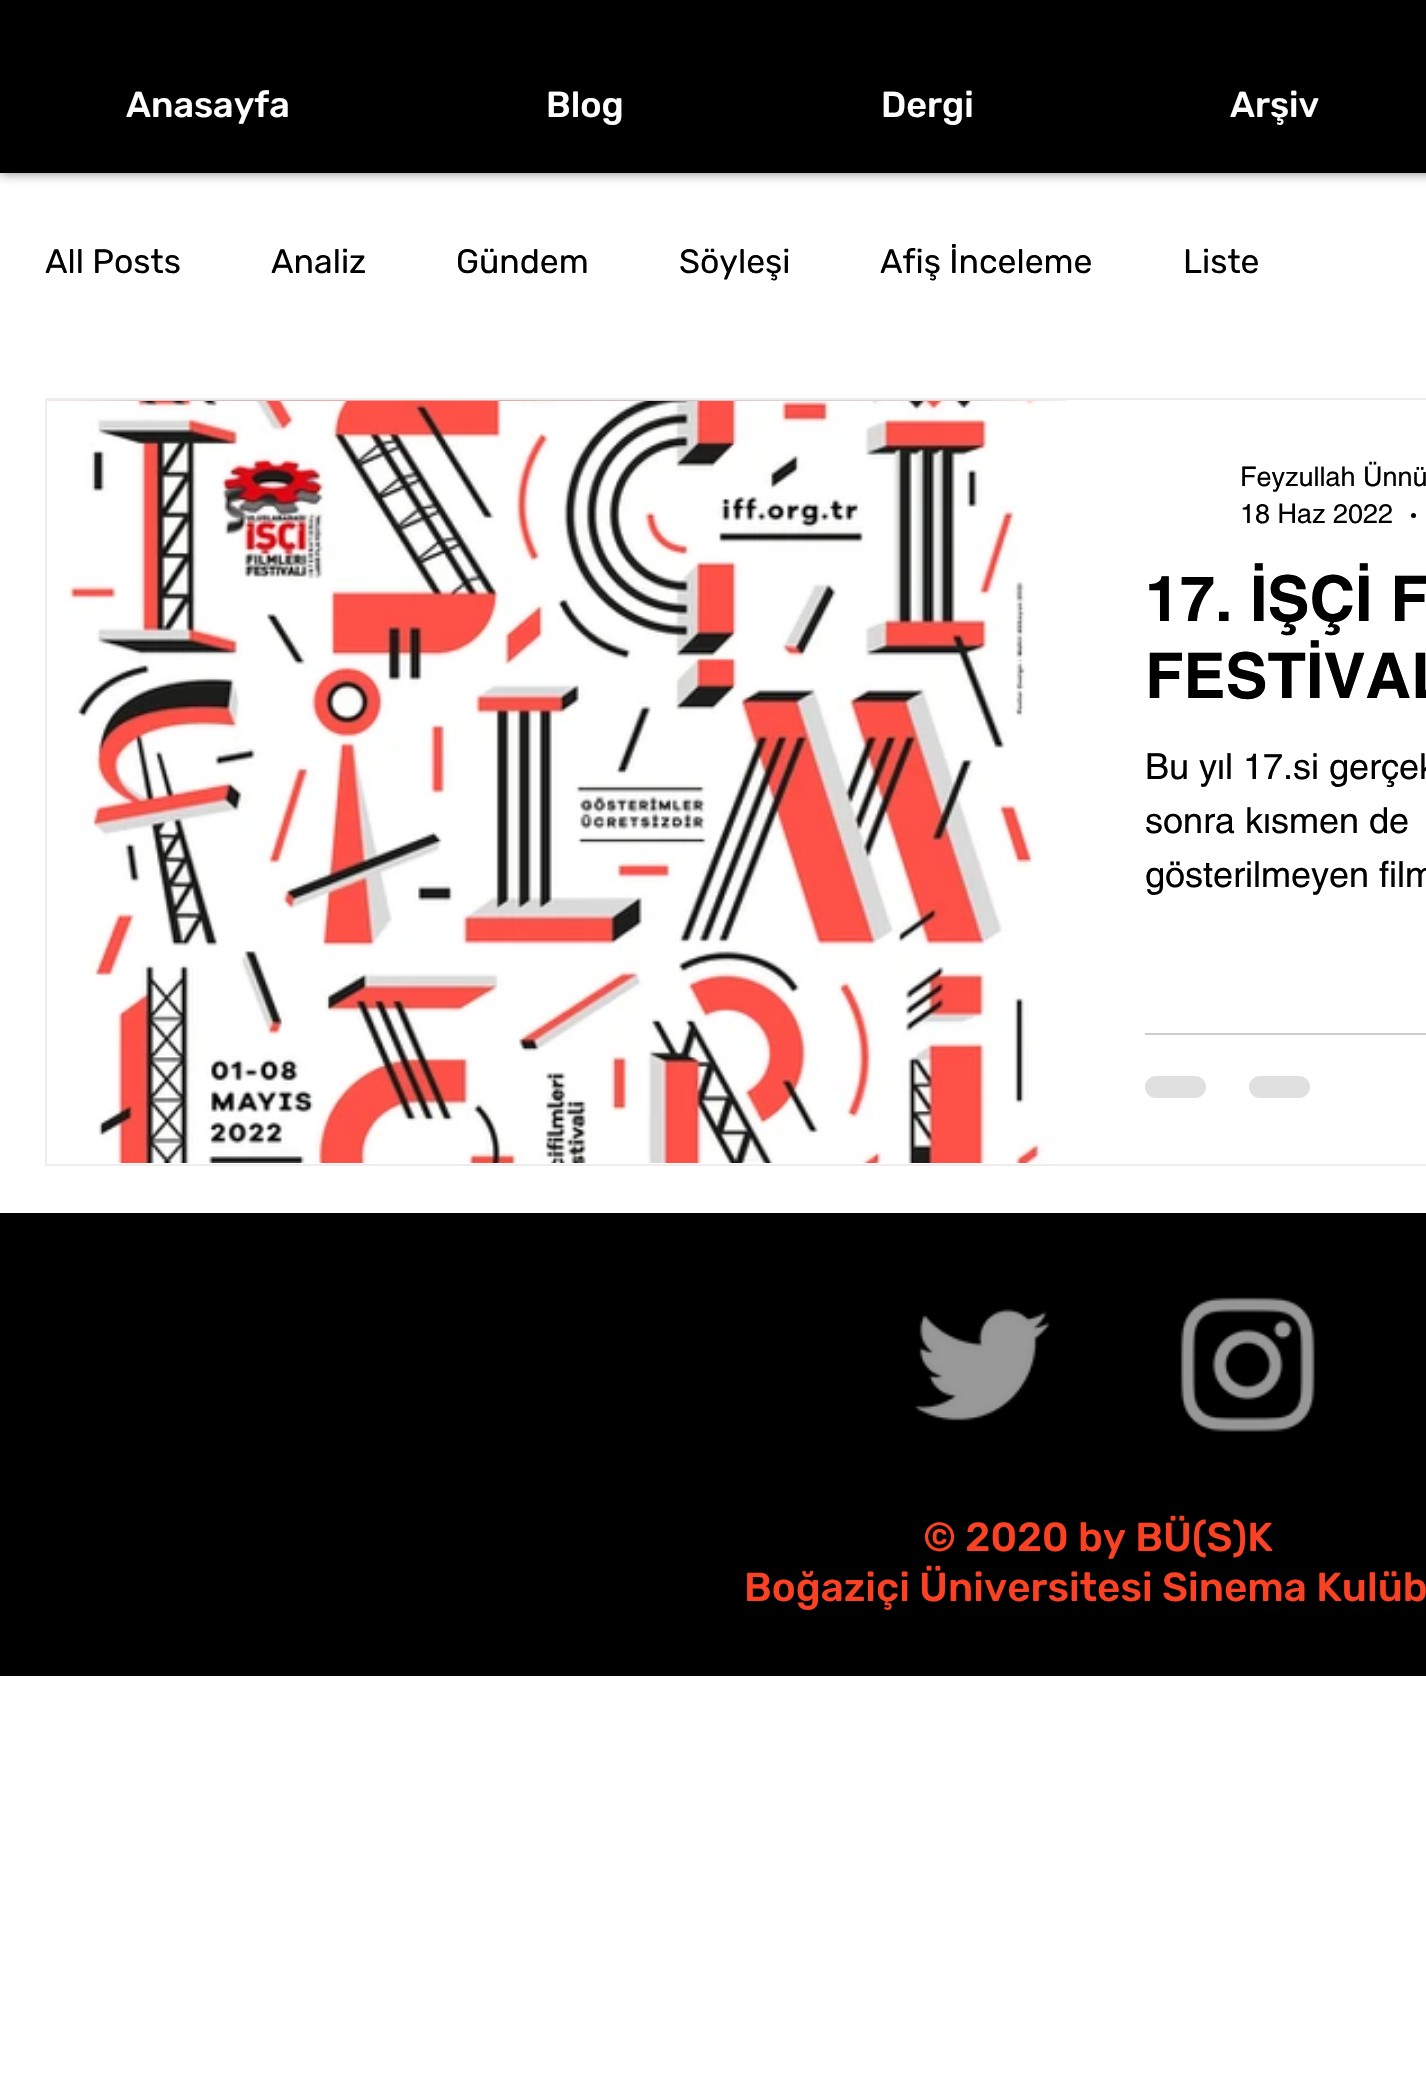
void draw(SkCanvas* canvas) {
    SkPaint paint;
    paint.setAntiAlias(true);
    auto face = [&](const char* family, int weight, float size, bool italic = false) {
        SkFontStyle style(weight, SkFontStyle::kNormal_Width,
            italic ? SkFontStyle::kItalic_Slant : SkFontStyle::kUpright_Slant);
        SkFont result(fontMgr->matchFamilyStyle(family, style), size);
        result.setSubpixel(true);
        return result;
    };
    auto write = [&](const char* s, float x, float y, const SkFont& font, SkColor color) {
        SkPaint ink(SkColor4f::FromColor(color));
        ink.setAntiAlias(true);
        canvas->drawString(s, x, y, font, ink);
    };
    auto block = [&](float x, float y, float w, float h, SkColor color) {
        SkPaint ink(SkColor4f::FromColor(color));
        ink.setAntiAlias(true);
        canvas->drawRect(SkRect::MakeXYWH(x, y, w, h), ink);
    };
    auto card = [&](float x, float y, float w, float h, float radius, SkColor color) {
        SkPaint ink(SkColor4f::FromColor(color));
        ink.setAntiAlias(true);
        canvas->drawRoundRect(SkRect::MakeXYWH(x, y, w, h), radius, radius, ink);
    };
    auto paste = [&](const char* path, float x, float y, float w, float h) {
        auto image = SkImages::DeferredFromEncodedData(SkData::MakeFromFileName(path));
        canvas->drawImageRect(image, SkRect::MakeXYWH(x, y, w, h), SkSamplingOptions());
    };
    canvas->clear(SK_ColorWHITE);
    paint.setColor(SkColorSetARGB(128, 0, 0, 0));
    paint.setMaskFilter(SkMaskFilter::MakeBlur(kNormal_SkBlurStyle, 5.5f));
    canvas->drawRect(SkRect::MakeXYWH(0, 0, 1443, 173), paint);
    paint.setMaskFilter(nullptr);
    block(0, 0, 1426, 173, SK_ColorBLACK);
    auto kFont1 = face("Rubik", 500, 36);
    write("Anasayfa", 126, 117, kFont1, SK_ColorWHITE);
    write("Blog", 546, 117, kFont1, SK_ColorWHITE);
    write("Dergi", 881, 117, kFont1, SK_ColorWHITE);
    write("Arşiv", 1230, 117, kFont1, SK_ColorWHITE);
    auto kFont2 = face("Rubik", 400, 33.75f);
    write("All Posts", 45, 273, kFont2, SK_ColorBLACK);
    write("Analiz", 271, 273, kFont2, SK_ColorBLACK);
    write("Gündem", 456, 273, kFont2, SK_ColorBLACK);
    write("Söyleşi", 679, 273, kFont2, SK_ColorBLACK);
    write("Afiş İnceleme", 880, 273, kFont2, SK_ColorBLACK);
    write("Liste", 1183, 273, kFont2, SK_ColorBLACK);
    paint.setStyle(SkPaint::kStroke_Style);
    paint.setStrokeWidth(2);
    paint.setColor(SkColorSetRGB(238, 236, 236));
    canvas->drawRect(SkRect::MakeXYWH(46, 399, 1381, 766), paint);
    paste("pic1.png", 47, 400, 1020, 1);
    paste("pic2.png", 47, 401, 1017, 762);
    auto kFont3 = face("helvetica", 400, 27);
    write("Feyzullah Ünnü", 1240, 486, kFont3, SK_ColorBLACK);
    write("18 Haz 2022", 1240, 523, kFont3, SK_ColorBLACK);
    paint.setStyle(SkPaint::kFill_Style);
    paint.setColor(SK_ColorBLACK);
    canvas->drawCircle(1413.5f, 515.5f, 2.5f, paint);
    auto kFont4 = face("helvetica", 700, 63);
    write("17. İŞÇİ F", 1145, 621, kFont4, SK_ColorBLACK);
    write("FESTİVAL", 1145, 698, kFont4, SK_ColorBLACK);
    auto kFont5 = face("helvetica", 400, 36);
    write("Bu yıl 17.si gerçek", 1145, 779, kFont5, SK_ColorBLACK);
    write("sonra kısmen de", 1145, 833, kFont5, SK_ColorBLACK);
    write("gösterilmeyen film", 1145, 887, kFont5, SK_ColorBLACK);
    block(1145, 1033, 281, 2, SkColorSetRGB(204, 204, 204));
    card(1145, 1076, 61, 22, 11, SkColorSetRGB(224, 224, 224));
    card(1249, 1076, 61, 22, 11, SkColorSetRGB(224, 224, 224));
    block(0, 1213, 1426, 463, SK_ColorBLACK);
    paste("pic3.png", 915, 1309, 136, 112);
    paste("pic4.png", 1180, 1297, 135, 135);
    auto kFont6 = face("Rubik", 500, 40.5f);
    write("© 2020 by BÜ(S)K", 923, 1551, kFont6, SkColorSetRGB(250, 65, 36));
    write("Boğaziçi Üniversitesi Sinema Kulüb", 744, 1601, kFont6, SkColorSetRGB(250, 65, 36));
}
